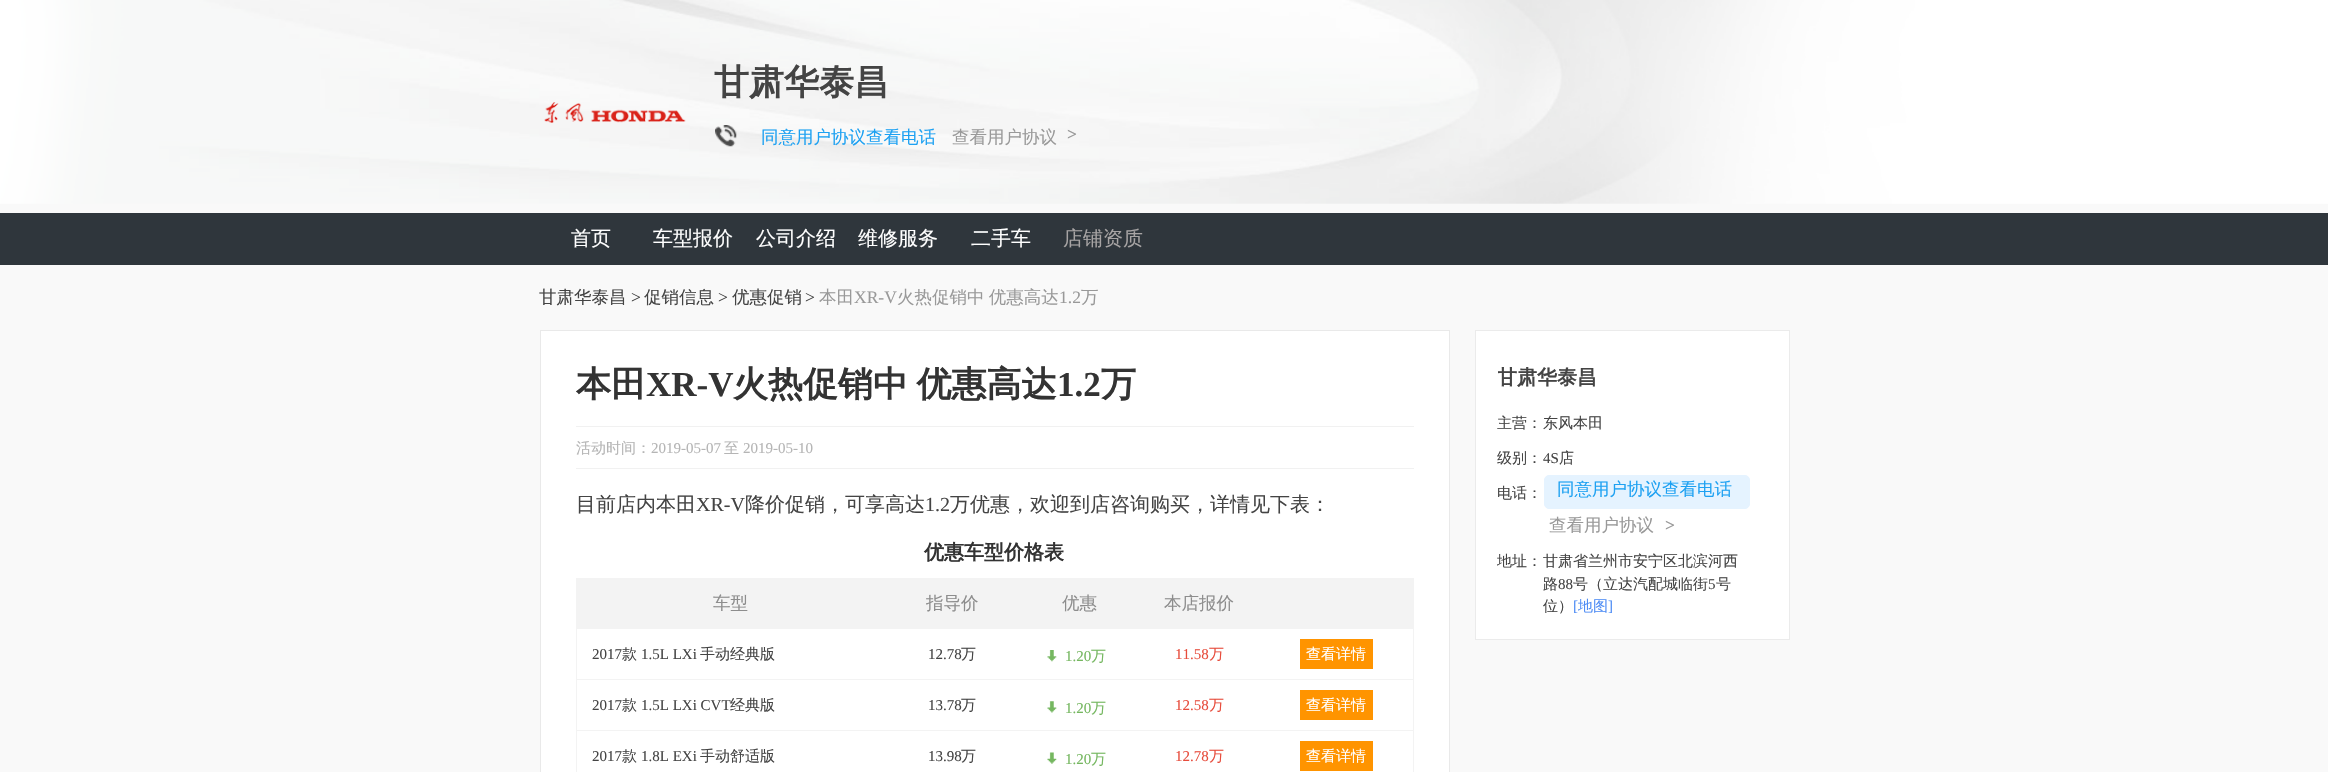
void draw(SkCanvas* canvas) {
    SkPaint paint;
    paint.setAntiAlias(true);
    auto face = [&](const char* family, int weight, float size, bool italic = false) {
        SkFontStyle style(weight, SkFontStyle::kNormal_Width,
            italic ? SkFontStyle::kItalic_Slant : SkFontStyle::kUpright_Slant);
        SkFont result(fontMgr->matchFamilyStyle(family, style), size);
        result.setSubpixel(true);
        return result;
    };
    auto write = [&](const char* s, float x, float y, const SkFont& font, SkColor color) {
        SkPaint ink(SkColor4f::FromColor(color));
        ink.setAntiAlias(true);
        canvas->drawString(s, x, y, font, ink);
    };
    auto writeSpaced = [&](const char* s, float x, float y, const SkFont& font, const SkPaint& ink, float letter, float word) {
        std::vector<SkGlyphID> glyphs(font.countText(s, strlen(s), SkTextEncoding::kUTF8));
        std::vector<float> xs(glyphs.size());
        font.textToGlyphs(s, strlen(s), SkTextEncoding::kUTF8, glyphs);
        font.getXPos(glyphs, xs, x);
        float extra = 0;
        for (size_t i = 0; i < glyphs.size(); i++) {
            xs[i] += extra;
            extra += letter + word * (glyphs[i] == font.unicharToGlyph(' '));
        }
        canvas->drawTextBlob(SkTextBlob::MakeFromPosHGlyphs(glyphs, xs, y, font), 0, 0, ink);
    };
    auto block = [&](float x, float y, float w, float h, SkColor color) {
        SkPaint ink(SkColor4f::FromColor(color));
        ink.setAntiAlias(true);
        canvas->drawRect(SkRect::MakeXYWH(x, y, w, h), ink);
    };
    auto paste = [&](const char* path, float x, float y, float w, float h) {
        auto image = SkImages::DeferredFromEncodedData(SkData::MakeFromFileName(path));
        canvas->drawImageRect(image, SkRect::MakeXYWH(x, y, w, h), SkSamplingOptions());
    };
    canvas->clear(SkColorSetRGB(249, 249, 249));
    paste("pic1.png", 0, 0, 2328, 204);
    paste("pic2.png", 544, 102, 142, 21);
    auto kFont1 = face("WenQuanYi Zen Hei", 700, 35);
    write("甘肃华泰昌", 714, 94, kFont1, SkColorSetRGB(68, 68, 68));
    paste("pic3.png", 715, 125, 22, 22);
    auto kFont2 = face("WenQuanYi Zen Hei", 500, 17.5f);
    write("同意用户协议查看电话", 761, 143, kFont2, SkColorSetRGB(29, 161, 242));
    write("查看用户协议", 952, 143, kFont2, SkColorSetRGB(153, 153, 153));
    auto kFont3 = face("Liberation Serif", 700, 17.5f);
    write(">", 1067, 140, kFont3, SkColorSetRGB(153, 153, 153));
    block(0, 213, 2328, 52, SkColorSetRGB(47, 54, 60));
    auto kFont4 = face("WenQuanYi Zen Hei", 500, 20);
    write("首页", 571, 245, kFont4, SK_ColorWHITE);
    write("车型报价", 653, 245, kFont4, SK_ColorWHITE);
    write("公司介绍", 756, 245, kFont4, SK_ColorWHITE);
    write("维修服务", 858, 245, kFont4, SK_ColorWHITE);
    write("二手车", 971, 245, kFont4, SK_ColorWHITE);
    write("店铺资质", 1063, 245, kFont4, SkColorSetRGB(167, 164, 164));
    write("甘肃华泰昌", 539, 303, kFont2, SkColorSetRGB(68, 68, 68));
    auto kFont5 = face("Liberation Serif", 400, 17.5f);
    write(">", 631, 303, kFont5, SkColorSetRGB(68, 68, 68));
    write("促销信息", 644, 303, kFont2, SkColorSetRGB(68, 68, 68));
    write(">", 718, 303, kFont5, SkColorSetRGB(68, 68, 68));
    write("优惠促销", 732, 303, kFont2, SkColorSetRGB(68, 68, 68));
    write(">", 805, 303, kFont5, SkColorSetRGB(68, 68, 68));
    write("本田", 819, 303, kFont2, SkColorSetRGB(153, 153, 153));
    write("XR-V", 854, 303, kFont5, SkColorSetRGB(153, 153, 153));
    paint.setColor(SkColorSetRGB(153, 153, 153));
    writeSpaced("火热促销中 优惠高达", 897, 303, kFont2, paint, 0, -1);
    write("1.2", 1059, 303, kFont5, SkColorSetRGB(153, 153, 153));
    write("万", 1081, 303, kFont2, SkColorSetRGB(153, 153, 153));
    paint.setColor(SK_ColorWHITE);
    canvas->drawRect(SkRect::MakeXYWH(540.5f, 330.5f, 909, 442), paint);
    paint.setStyle(SkPaint::kStroke_Style);
    paint.setStrokeWidth(1);
    paint.setColor(SkColorSetRGB(233, 233, 233));
    canvas->drawRect(SkRect::MakeXYWH(540.5f, 330.5f, 909, 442), paint);
    write("本田", 576, 396, kFont1, SkColorSetRGB(51, 51, 51));
    auto kFont6 = face("Liberation Serif", 700, 35);
    write("XR-V", 646, 396, kFont6, SkColorSetRGB(51, 51, 51));
    paint.setStyle(SkPaint::kFill_Style);
    paint.setColor(SkColorSetRGB(51, 51, 51));
    writeSpaced("火热促销中 优惠高达", 733, 396, kFont1, paint, 0, -2);
    write("1.2", 1057, 396, kFont6, SkColorSetRGB(51, 51, 51));
    write("万", 1101, 396, kFont1, SkColorSetRGB(51, 51, 51));
    block(576, 426, 838, 1, SkColorSetRGB(241, 241, 241));
    block(576, 468, 838, 1, SkColorSetRGB(241, 241, 241));
    auto kFont7 = face("WenQuanYi Zen Hei", 500, 15);
    write("活动时间：", 576, 453, kFont7, SkColorSetRGB(181, 181, 181));
    auto kFont8 = face("Liberation Serif", 400, 15);
    write("2019-05-07", 651, 453, kFont8, SkColorSetRGB(181, 181, 181));
    write("至", 724, 453, kFont7, SkColorSetRGB(181, 181, 181));
    write("2019-05-10", 743, 453, kFont8, SkColorSetRGB(181, 181, 181));
    write("目前店内本田", 576, 511, kFont4, SkColorSetRGB(68, 68, 68));
    auto kFont9 = face("Liberation Serif", 400, 20);
    write("XR-V", 696, 511, kFont9, SkColorSetRGB(68, 68, 68));
    write("降价促销，可享高达", 745, 511, kFont4, SkColorSetRGB(68, 68, 68));
    write("1.2", 925, 511, kFont9, SkColorSetRGB(68, 68, 68));
    write("万优惠，欢迎到店咨询购买，详情见下表：", 950, 511, kFont4, SkColorSetRGB(68, 68, 68));
    auto kFont10 = face("WenQuanYi Zen Hei", 700, 20);
    write("优惠车型价格表", 924, 559, kFont10, SkColorSetRGB(51, 51, 51));
    block(576, 578, 838, 1, SkColorSetRGB(243, 243, 243));
    block(1413, 578, 1, 194, SkColorSetRGB(243, 243, 243));
    block(576, 578, 1, 194, SkColorSetRGB(243, 243, 243));
    block(577, 579, 836, 50, SkColorSetRGB(243, 243, 243));
    write("车型", 713, 609, kFont2, SkColorSetRGB(141, 141, 141));
    write("指导价", 926, 609, kFont2, SkColorSetRGB(141, 141, 141));
    write("优惠", 1062, 609, kFont2, SkColorSetRGB(141, 141, 141));
    write("本店报价", 1164, 609, kFont2, SkColorSetRGB(141, 141, 141));
    write("2017", 592, 659, kFont8, SkColorSetRGB(68, 68, 68));
    write("款", 622, 659, kFont7, SkColorSetRGB(68, 68, 68));
    write("1.5L LXi", 641, 659, kFont8, SkColorSetRGB(68, 68, 68));
    write("手动经典版", 700, 659, kFont7, SkColorSetRGB(68, 68, 68));
    write("12.78", 928, 659, kFont8, SkColorSetRGB(68, 68, 68));
    write("万", 961, 659, kFont7, SkColorSetRGB(68, 68, 68));
    paste("pic4.png", 1047, 650, 10, 12);
    write("1.20", 1065, 661, kFont8, SkColorSetRGB(117, 183, 96));
    write("万", 1091, 661, kFont7, SkColorSetRGB(117, 183, 96));
    write("11.58", 1175, 659, kFont8, SkColorSetRGB(231, 76, 60));
    write("万", 1209, 659, kFont7, SkColorSetRGB(231, 76, 60));
    block(576, 679, 838, 1, SkColorSetRGB(243, 243, 243));
    block(1300, 639, 73, 30, SkColorSetRGB(255, 148, 0));
    write("查看详情", 1306, 659, kFont7, SK_ColorWHITE);
    write("2017", 592, 710, kFont8, SkColorSetRGB(68, 68, 68));
    write("款", 622, 710, kFont7, SkColorSetRGB(68, 68, 68));
    write("1.5L LXi CVT", 641, 710, kFont8, SkColorSetRGB(68, 68, 68));
    write("经典版", 730, 710, kFont7, SkColorSetRGB(68, 68, 68));
    write("13.78", 928, 710, kFont8, SkColorSetRGB(68, 68, 68));
    write("万", 961, 710, kFont7, SkColorSetRGB(68, 68, 68));
    paste("pic5.png", 1047, 701, 10, 12);
    write("1.20", 1065, 713, kFont8, SkColorSetRGB(117, 183, 96));
    write("万", 1091, 713, kFont7, SkColorSetRGB(117, 183, 96));
    write("12.58", 1175, 710, kFont8, SkColorSetRGB(231, 76, 60));
    write("万", 1209, 710, kFont7, SkColorSetRGB(231, 76, 60));
    block(576, 730, 838, 1, SkColorSetRGB(243, 243, 243));
    block(1300, 690, 73, 30, SkColorSetRGB(255, 148, 0));
    write("查看详情", 1306, 710, kFont7, SK_ColorWHITE);
    write("2017", 592, 761, kFont8, SkColorSetRGB(68, 68, 68));
    write("款", 622, 761, kFont7, SkColorSetRGB(68, 68, 68));
    write("1.8L EXi", 641, 761, kFont8, SkColorSetRGB(68, 68, 68));
    write("手动舒适版", 700, 761, kFont7, SkColorSetRGB(68, 68, 68));
    write("13.98", 928, 761, kFont8, SkColorSetRGB(68, 68, 68));
    write("万", 961, 761, kFont7, SkColorSetRGB(68, 68, 68));
    paste("pic6.png", 1047, 752, 10, 12);
    write("1.20", 1065, 764, kFont8, SkColorSetRGB(117, 183, 96));
    write("万", 1091, 764, kFont7, SkColorSetRGB(117, 183, 96));
    write("12.78", 1175, 761, kFont8, SkColorSetRGB(231, 76, 60));
    write("万", 1209, 761, kFont7, SkColorSetRGB(231, 76, 60));
    block(1300, 741, 73, 30, SkColorSetRGB(255, 148, 0));
    write("查看详情", 1306, 761, kFont7, SK_ColorWHITE);
    paint.setColor(SK_ColorWHITE);
    canvas->drawRect(SkRect::MakeXYWH(1475.5f, 330.5f, 314, 309), paint);
    paint.setStyle(SkPaint::kStroke_Style);
    paint.setColor(SkColorSetRGB(235, 235, 235));
    canvas->drawRect(SkRect::MakeXYWH(1475.5f, 330.5f, 314, 309), paint);
    canvas->save();
    canvas->clipRect(SkRect::MakeXYWH(1498, 350, 270, 55));
    write("甘肃华泰昌", 1497, 384, kFont10, SkColorSetRGB(68, 68, 68));
    canvas->restore();
    write("主营：", 1497, 428, kFont7, SkColorSetRGB(68, 68, 68));
    write("东风本田", 1543, 428, kFont7, SkColorSetRGB(68, 68, 68));
    write("级别：", 1497, 463, kFont7, SkColorSetRGB(68, 68, 68));
    write("4S", 1543, 463, kFont8, SkColorSetRGB(68, 68, 68));
    write("店", 1559, 463, kFont7, SkColorSetRGB(68, 68, 68));
    write("电话：", 1497, 498, kFont7, SkColorSetRGB(68, 68, 68));
    paint.setStyle(SkPaint::kFill_Style);
    paint.setColor(SkColorSetRGB(229, 243, 255));
    canvas->drawRoundRect(SkRect::MakeXYWH(1544.5f, 475.5f, 205, 33), 4.5f, 4.5f, paint);
    paint.setStyle(SkPaint::kStroke_Style);
    canvas->drawRoundRect(SkRect::MakeXYWH(1544.5f, 475.5f, 205, 33), 4.5f, 4.5f, paint);
    write("同意用户协议查看电话", 1557, 495, kFont2, SkColorSetRGB(29, 161, 242));
    write("查看用户协议", 1549, 531, kFont2, SkColorSetRGB(153, 153, 153));
    write(">", 1665, 531, kFont3, SkColorSetRGB(153, 153, 153));
    write("地址：", 1497, 566, kFont7, SkColorSetRGB(68, 68, 68));
    write("甘肃省兰州市安宁区北滨河西", 1543, 566, kFont7, SkColorSetRGB(68, 68, 68));
    write("路", 1543, 589, kFont7, SkColorSetRGB(68, 68, 68));
    write("88", 1558, 589, kFont8, SkColorSetRGB(68, 68, 68));
    write("号（立达汽配城临街", 1573, 589, kFont7, SkColorSetRGB(68, 68, 68));
    write("5", 1708, 589, kFont8, SkColorSetRGB(68, 68, 68));
    write("号", 1716, 589, kFont7, SkColorSetRGB(68, 68, 68));
    write("位）", 1543, 611, kFont7, SkColorSetRGB(68, 68, 68));
    write("[", 1573, 611, kFont8, SkColorSetRGB(79, 141, 245));
    write("地图", 1578, 611, kFont7, SkColorSetRGB(79, 141, 245));
    write("]", 1608, 611, kFont8, SkColorSetRGB(79, 141, 245));
}
